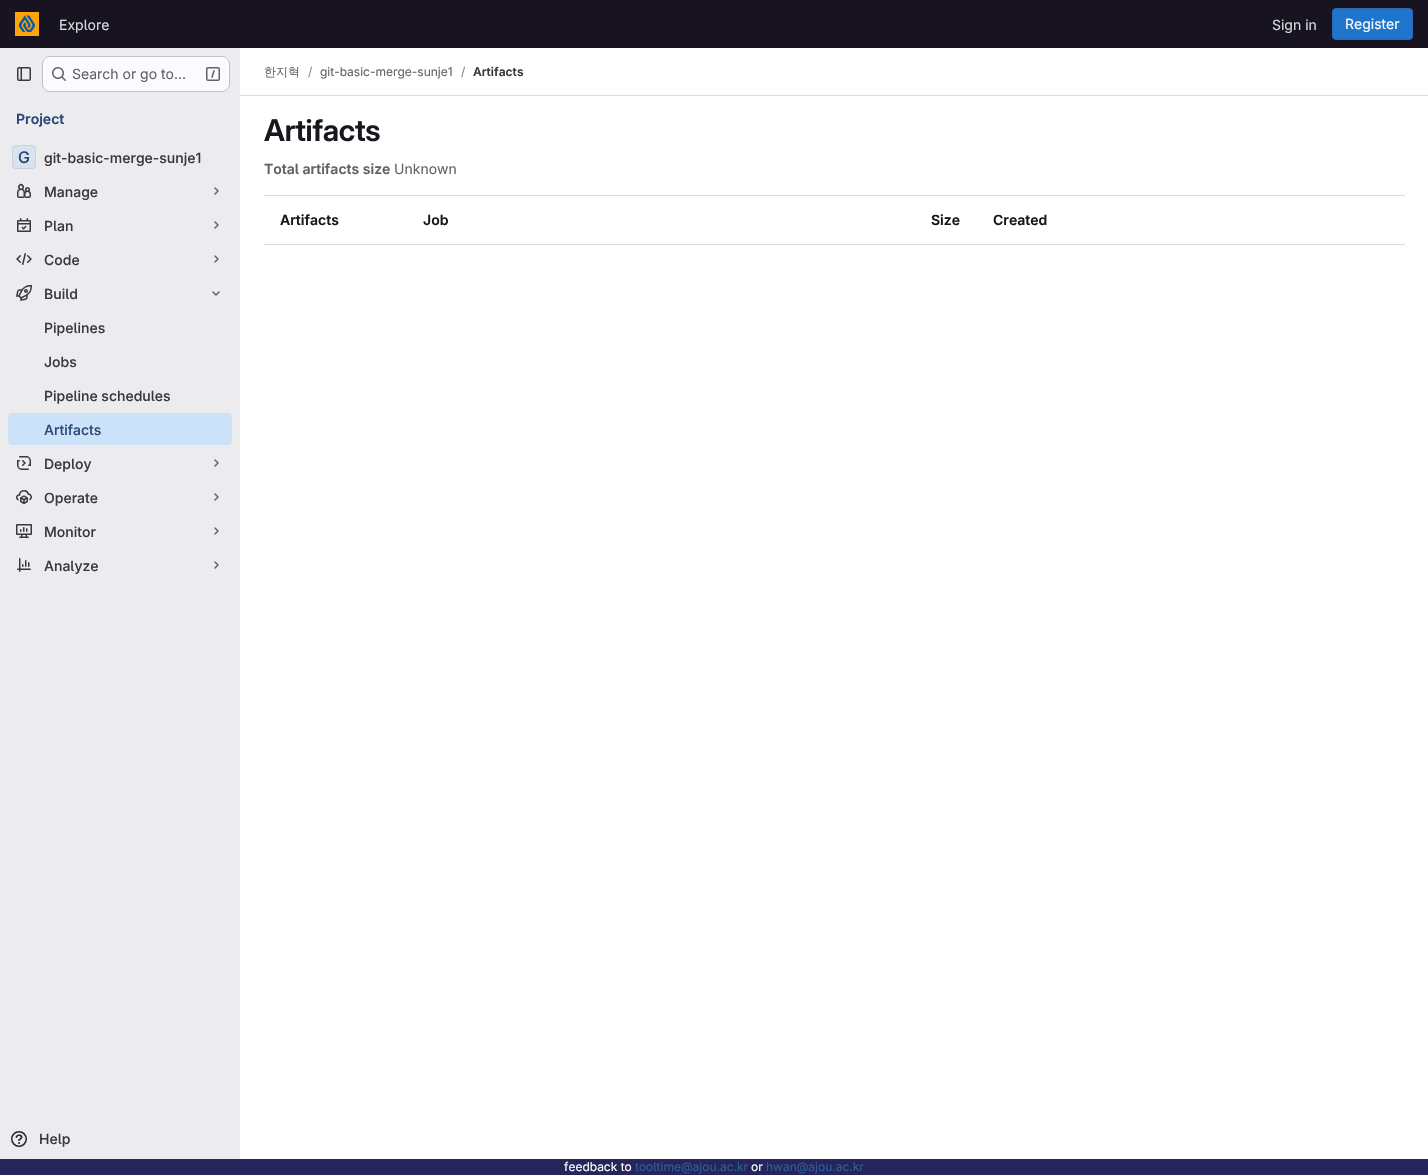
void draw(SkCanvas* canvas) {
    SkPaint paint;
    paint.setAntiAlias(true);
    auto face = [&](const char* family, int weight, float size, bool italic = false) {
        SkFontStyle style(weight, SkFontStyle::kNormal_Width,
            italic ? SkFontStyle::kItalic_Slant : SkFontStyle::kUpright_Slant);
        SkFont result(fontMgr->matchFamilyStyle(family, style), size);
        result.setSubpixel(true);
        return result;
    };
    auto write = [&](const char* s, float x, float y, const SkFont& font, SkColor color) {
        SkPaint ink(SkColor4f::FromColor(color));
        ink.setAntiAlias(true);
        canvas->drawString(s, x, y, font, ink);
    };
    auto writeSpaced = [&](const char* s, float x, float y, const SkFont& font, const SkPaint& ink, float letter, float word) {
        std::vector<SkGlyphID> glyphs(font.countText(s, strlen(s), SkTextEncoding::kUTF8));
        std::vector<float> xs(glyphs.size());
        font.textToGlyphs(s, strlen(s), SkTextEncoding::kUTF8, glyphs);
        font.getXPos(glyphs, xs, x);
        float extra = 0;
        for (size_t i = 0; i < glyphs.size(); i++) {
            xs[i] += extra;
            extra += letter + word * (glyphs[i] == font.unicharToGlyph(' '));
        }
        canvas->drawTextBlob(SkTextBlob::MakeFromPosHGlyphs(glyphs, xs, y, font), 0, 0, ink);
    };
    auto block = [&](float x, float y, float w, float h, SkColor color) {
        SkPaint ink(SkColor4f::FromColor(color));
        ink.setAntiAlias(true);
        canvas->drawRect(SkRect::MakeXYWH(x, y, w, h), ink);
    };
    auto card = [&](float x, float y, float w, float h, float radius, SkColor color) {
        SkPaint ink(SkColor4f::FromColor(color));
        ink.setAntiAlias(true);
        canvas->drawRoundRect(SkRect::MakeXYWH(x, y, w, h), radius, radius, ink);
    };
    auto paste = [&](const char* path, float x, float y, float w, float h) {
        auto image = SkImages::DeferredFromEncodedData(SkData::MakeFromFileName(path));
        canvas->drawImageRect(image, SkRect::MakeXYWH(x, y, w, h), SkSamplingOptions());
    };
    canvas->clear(SK_ColorWHITE);
    block(0, 0, 1428, 48, SkColorSetRGB(23, 19, 33));
    paste("pic1.png", 15, 12, 24, 24);
    auto kFont1 = face("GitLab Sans", 400, 14);
    write("Explore", 59, 30, kFont1, SkColorSetRGB(220, 220, 222));
    write("Sign in", 1272, 30, kFont1, SkColorSetRGB(220, 220, 222));
    paint.setColor(SkColorSetRGB(31, 117, 203));
    canvas->drawRoundRect(SkRect::MakeXYWH(1332.5f, 8.5f, 80, 31), 3.5f, 3.5f, paint);
    paint.setStyle(SkPaint::kStroke_Style);
    paint.setStrokeWidth(1);
    paint.setColor(SkColorSetRGB(47, 104, 180));
    canvas->drawRoundRect(SkRect::MakeXYWH(1332.5f, 8.5f, 80, 31), 3.5f, 3.5f, paint);
    write("Register", 1345, 29, kFont1, SK_ColorWHITE);
    block(0, 48, 240, 1111, SkColorSetRGB(236, 236, 239));
    paste("pic2.png", 17, 67, 14, 14);
    card(42, 56, 188, 36, 8, SkColorSetRGB(251, 250, 253));
    paint.setColor(SkColorSetARGB(61, 5, 5, 6));
    canvas->drawRoundRect(SkRect::MakeXYWH(42.5f, 56.5f, 187, 35), 7.5f, 7.5f, paint);
    paste("pic3.png", 52, 67, 14, 14);
    write("Search or go to…", 72, 79, kFont1, SkColorSetRGB(98, 97, 104));
    paste("pic4.png", 206, 67, 14, 14);
    auto kFont2 = face("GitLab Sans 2", 600, 14);
    write("Project", 16, 124, kFont2, SkColorSetRGB(40, 71, 121));
    card(12, 145, 24, 24, 4, SkColorSetRGB(217, 227, 239));
    paint.setColor(SkColorSetARGB(20, 5, 5, 6));
    canvas->drawRoundRect(SkRect::MakeXYWH(12.5f, 145.5f, 23, 23), 3.5f, 3.5f, paint);
    auto kFont3 = face("GitLab Sans 2", 500, 16);
    write("G", 18, 163, kFont3, SkColorSetRGB(40, 71, 121));
    auto kFont4 = face("GitLab Sans", 500, 14);
    write("git-basic-merge-sunje1", 44, 163, kFont4, SkColorSetRGB(58, 56, 63));
    paste("pic5.png", 17, 183, 14, 15);
    write("Manage", 44, 197, kFont4, SkColorSetRGB(58, 56, 63));
    paint.setStrokeWidth(1.5f);
    paint.setStrokeCap(SkPaint::kRound_Cap);
    paint.setStrokeJoin(SkPaint::kRound_Join);
    paint.setColor(SkColorSetRGB(98, 97, 104));
    canvas->drawPath(SkPathBuilder().moveTo(215, 188).lineTo(218, 191).lineTo(215, 194).detach(), paint);
    paste("pic6.png", 17, 218, 14, 14);
    write("Plan", 44, 231, kFont4, SkColorSetRGB(58, 56, 63));
    canvas->drawPath(SkPathBuilder().moveTo(215, 222).lineTo(218, 225).lineTo(215, 228).detach(), paint);
    paste("pic7.png", 16, 253, 16, 12);
    write("Code", 44, 265, kFont4, SkColorSetRGB(58, 56, 63));
    canvas->drawPath(SkPathBuilder().moveTo(215, 256).lineTo(218, 259).lineTo(215, 262).detach(), paint);
    paste("pic8.png", 16, 285, 16, 16);
    write("Build", 44, 299, kFont4, SkColorSetRGB(58, 56, 63));
    canvas->drawPath(SkPathBuilder().moveTo(219, 292).lineTo(216, 295).lineTo(213, 292).detach(), paint);
    write("Pipelines", 44, 333, kFont4, SkColorSetRGB(58, 56, 63));
    write("Jobs", 44, 367, kFont4, SkColorSetRGB(58, 56, 63));
    write("Pipeline schedules", 44, 401, kFont4, SkColorSetRGB(58, 56, 63));
    card(8, 413, 224, 32, 4, SkColorSetRGB(203, 226, 249));
    write("Artifacts", 44, 435, kFont4, SkColorSetRGB(40, 71, 121));
    paste("pic9.png", 17, 456, 14, 14);
    write("Deploy", 44, 469, kFont4, SkColorSetRGB(58, 56, 63));
    canvas->drawPath(SkPathBuilder().moveTo(215, 460).lineTo(218, 463).lineTo(215, 466).detach(), paint);
    paste("pic10.png", 16, 490, 16, 15);
    write("Operate", 44, 503, kFont4, SkColorSetRGB(58, 56, 63));
    canvas->drawPath(SkPathBuilder().moveTo(215, 494).lineTo(218, 497).lineTo(215, 500).detach(), paint);
    paste("pic11.png", 16, 524, 16, 14);
    write("Monitor", 44, 537, kFont4, SkColorSetRGB(58, 56, 63));
    canvas->drawPath(SkPathBuilder().moveTo(215, 528).lineTo(218, 531).lineTo(215, 534).detach(), paint);
    paste("pic12.png", 17, 558, 14, 14);
    write("Analyze", 44, 571, kFont4, SkColorSetRGB(58, 56, 63));
    canvas->drawPath(SkPathBuilder().moveTo(215, 562).lineTo(218, 565).lineTo(215, 568).detach(), paint);
    paste("pic13.png", 11, 1131, 16, 16);
    write("Help", 39, 1144, kFont4, SkColorSetRGB(58, 56, 63));
    block(240, 95, 1188, 1, SkColorSetRGB(220, 220, 222));
    auto kFont5 = face("WenQuanYi Zen Hei", 500, 12);
    write("한지혁", 264, 76, kFont5, SkColorSetRGB(98, 97, 104));
    auto kFont6 = face("GitLab Sans", 400, 12);
    write("/", 308, 76, kFont6, SkColorSetRGB(137, 136, 141));
    write("git-basic-merge-sunje1", 320, 76, kFont6, SkColorSetRGB(98, 97, 104));
    write("/", 461, 76, kFont6, SkColorSetRGB(137, 136, 141));
    auto kFont7 = face("GitLab Sans 2", 600, 12);
    write("Artifacts", 473, 76, kFont7, SkColorSetRGB(58, 56, 63));
    auto kFont8 = face("GitLab Sans", 600, 30);
    paint.setStyle(SkPaint::kFill_Style);
    paint.setColor(SkColorSetRGB(24, 23, 29));
    writeSpaced("Artifacts", 264, 141, kFont8, paint, -0.25f, 0);
    write("Total artifacts size", 264, 174, kFont2, SkColorSetRGB(98, 97, 104));
    write("Unknown", 394, 174, kFont1, SkColorSetRGB(98, 97, 104));
    block(264, 195, 1141, 1, SkColorSetRGB(220, 220, 222));
    block(264, 244, 1141, 1, SkColorSetRGB(220, 220, 222));
    write("Artifacts", 280, 225, kFont2, SkColorSetRGB(24, 23, 29));
    write("Job", 423, 225, kFont2, SkColorSetRGB(24, 23, 29));
    write("Size", 931, 225, kFont2, SkColorSetRGB(24, 23, 29));
    write("Created", 993, 225, kFont2, SkColorSetRGB(24, 23, 29));
    block(0, 1159, 1428, 16, SkColorSetRGB(37, 37, 90));
    write("feedback to", 564, 1171, kFont6, SK_ColorWHITE);
    write("tooltime@ajou.ac.kr", 635, 1171, kFont6, SkColorSetRGB(47, 92, 160));
    write("or", 751, 1171, kFont6, SK_ColorWHITE);
    write("hwan@ajou.ac.kr", 766, 1171, kFont6, SkColorSetRGB(47, 92, 160));
}
